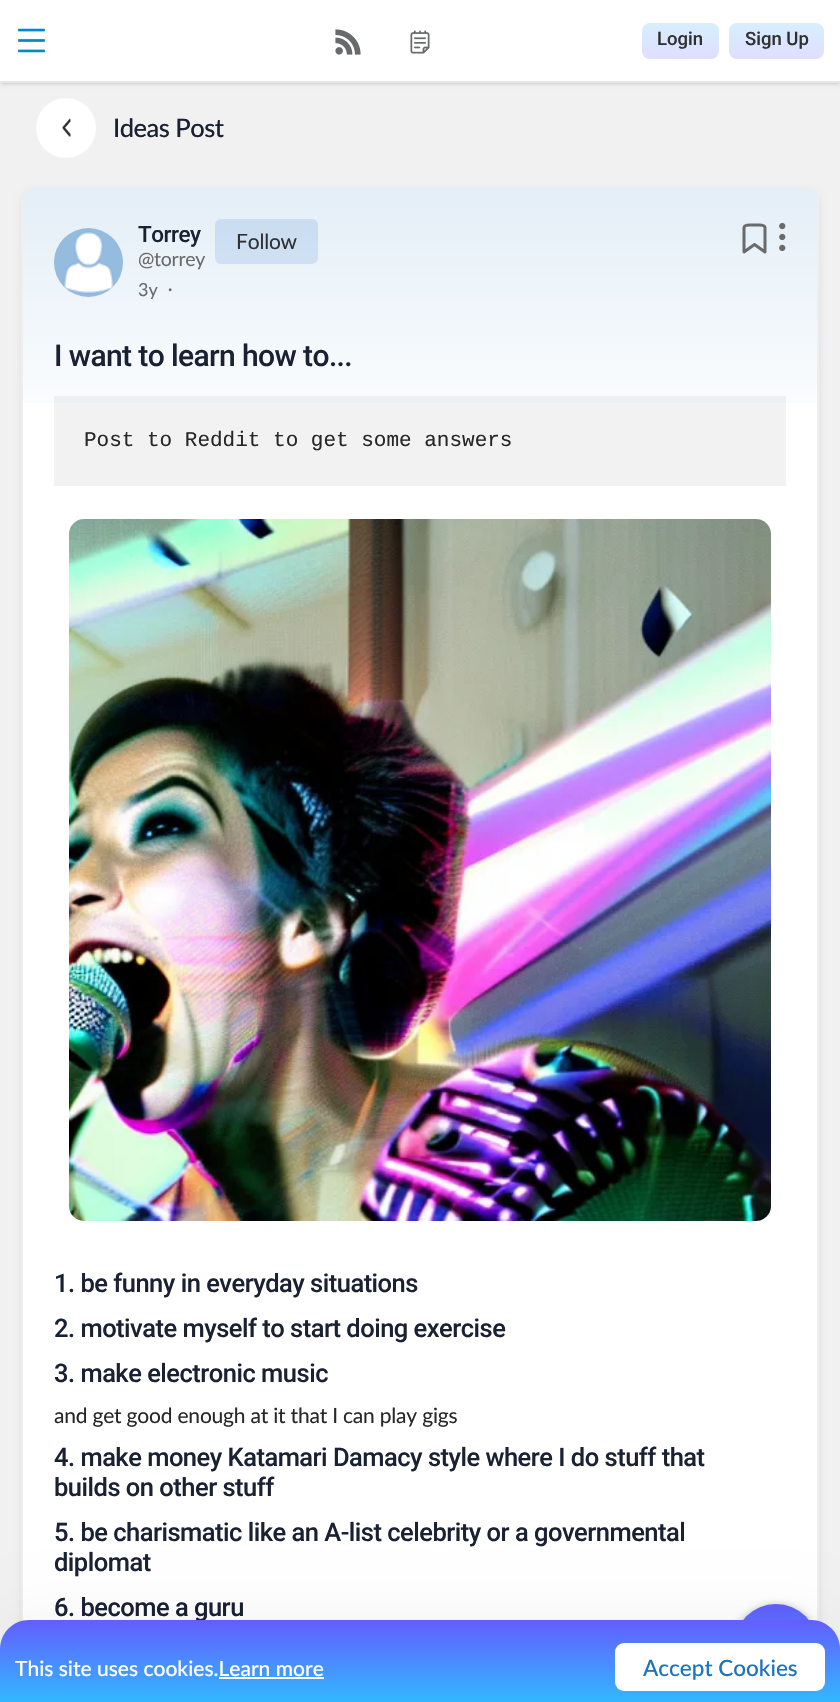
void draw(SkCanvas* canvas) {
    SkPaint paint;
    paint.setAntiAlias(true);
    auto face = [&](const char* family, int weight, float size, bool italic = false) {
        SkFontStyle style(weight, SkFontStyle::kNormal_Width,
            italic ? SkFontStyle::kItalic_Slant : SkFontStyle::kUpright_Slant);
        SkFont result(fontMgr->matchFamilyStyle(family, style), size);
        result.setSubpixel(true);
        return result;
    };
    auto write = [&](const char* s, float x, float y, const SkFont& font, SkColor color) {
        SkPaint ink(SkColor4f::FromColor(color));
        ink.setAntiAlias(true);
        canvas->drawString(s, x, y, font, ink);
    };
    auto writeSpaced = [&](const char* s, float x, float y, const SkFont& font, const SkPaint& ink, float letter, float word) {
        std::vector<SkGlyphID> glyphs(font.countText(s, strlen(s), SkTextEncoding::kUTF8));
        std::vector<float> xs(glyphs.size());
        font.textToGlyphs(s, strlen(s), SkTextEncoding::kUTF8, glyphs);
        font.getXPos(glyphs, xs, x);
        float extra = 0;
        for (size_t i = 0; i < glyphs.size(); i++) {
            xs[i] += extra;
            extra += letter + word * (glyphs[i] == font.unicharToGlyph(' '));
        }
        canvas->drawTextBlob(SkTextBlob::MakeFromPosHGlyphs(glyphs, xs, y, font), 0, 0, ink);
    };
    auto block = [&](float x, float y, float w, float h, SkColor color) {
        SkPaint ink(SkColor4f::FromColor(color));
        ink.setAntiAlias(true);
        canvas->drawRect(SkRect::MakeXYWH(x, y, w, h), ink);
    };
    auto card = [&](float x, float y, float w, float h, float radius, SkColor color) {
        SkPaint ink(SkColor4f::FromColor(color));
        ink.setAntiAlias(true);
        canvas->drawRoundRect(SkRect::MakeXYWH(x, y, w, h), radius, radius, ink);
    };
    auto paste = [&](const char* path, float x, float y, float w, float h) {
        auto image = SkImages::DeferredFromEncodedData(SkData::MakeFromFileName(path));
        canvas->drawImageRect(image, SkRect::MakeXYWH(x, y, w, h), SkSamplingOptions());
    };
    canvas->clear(SkColorSetRGB(241, 241, 241));
    paint.setColor(SkColorSetARGB(26, 0, 0, 0));
    paint.setMaskFilter(SkMaskFilter::MakeBlur(kNormal_SkBlurStyle, 1.5f));
    canvas->drawRect(SkRect::MakeXYWH(2, 3, 837, 80), paint);
    paint.setMaskFilter(nullptr);
    paint.setMaskFilter(SkMaskFilter::MakeBlur(kNormal_SkBlurStyle, 2));
    canvas->drawRect(SkRect::MakeXYWH(0, 2, 840, 82), paint);
    paint.setMaskFilter(nullptr);
    block(0, 0, 840, 81, SK_ColorWHITE);
    block(0, 81, 840, 2, SkColorSetRGB(229, 231, 235));
    paste("pic1.png", 18, 28, 27, 25);
    paste("pic2.png", 335, 29, 26, 26);
    paste("pic3.png", 410, 30, 20, 24);
    {
        const SkColor colors[] = {SkColorSetRGB(214, 240, 255), SkColorSetRGB(224, 222, 255)};
        const float stops[] = {0, 1};
        const SkPoint ends[] = {{680, 22}, {680, 59}};
        paint.setShader(SkGradientShader::MakeLinear(ends, colors, stops, 2, SkTileMode::kClamp));
        paint.setAlpha(255);
    }
    canvas->drawRoundRect(SkRect::MakeXYWH(642, 23, 77, 36), 8, 8, paint);
    auto kFont1 = face("Roboto", 500, 18.5f);
    write("Login", 657, 45, kFont1, SkColorSetRGB(48, 48, 48));
    {
        const SkColor colors[] = {SkColorSetRGB(214, 240, 255), SkColorSetRGB(224, 222, 255)};
        const float stops[] = {0, 1};
        const SkPoint ends[] = {{776, 22}, {776, 59}};
        paint.setShader(SkGradientShader::MakeLinear(ends, colors, stops, 2, SkTileMode::kClamp));
        paint.setAlpha(255);
    }
    canvas->drawRoundRect(SkRect::MakeXYWH(729, 23, 95, 36), 8, 8, paint);
    write("Sign Up", 745, 45, kFont1, SkColorSetRGB(48, 48, 48));
    paint.setShader(nullptr);
    paint.setColor(SK_ColorWHITE);
    canvas->drawCircle(66, 128, 30, paint);
    paste("pic4.png", 62, 118, 9, 19);
    auto kFont2 = face("Lato", 500, 25.5f);
    paint.setColor(SkColorSetRGB(25, 33, 51));
    writeSpaced("Ideas Post", 113, 137, kFont2, paint, -0.5f, 0);
    paint.setColor(SkColorSetARGB(26, 0, 0, 0));
    paint.setMaskFilter(SkMaskFilter::MakeBlur(kNormal_SkBlurStyle, 4.5f));
    canvas->drawRoundRect(SkRect::MakeXYWH(23, 194, 795, 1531), 9, 9, paint);
    paint.setMaskFilter(nullptr);
    paint.setColor(SK_ColorWHITE);
    canvas->drawPath(SkPathBuilder().moveTo(32, 186).lineTo(808, 186).cubicTo(814, 186, 819, 191, 819, 197).lineTo(819, 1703).lineTo(21, 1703).lineTo(21, 197).cubicTo(21, 191, 26, 186, 32, 186).close().detach(), paint);
    canvas->save();
    canvas->clipPath(SkPathBuilder().moveTo(32, 186).lineTo(808, 186).cubicTo(814, 186, 819, 191, 819, 197).lineTo(819, 1987).cubicTo(819, 1993, 814, 1998, 808, 1998).lineTo(32, 1998).cubicTo(26, 1998, 21, 1993, 21, 1987).lineTo(21, 197).cubicTo(21, 191, 26, 186, 32, 186).close().detach(), true);
    {
        const SkColor colors[] = {SkColorSetARGB(31, 28, 117, 188), SkColorSetARGB(0, 28, 117, 188)};
        const float stops[] = {0, 1};
        const SkPoint ends[] = {{420, 187}, {420, 450}};
        paint.setShader(SkGradientShader::MakeLinear(ends, colors, stops, 2, SkTileMode::kClamp));
        paint.setAlpha(255);
    }
    canvas->drawRect(SkRect::MakeXYWH(23, 188, 795, 215), paint);
    canvas->restore();
    paint.setStyle(SkPaint::kStroke_Style);
    paint.setStrokeWidth(2);
    paint.setShader(nullptr);
    paint.setColor(SkColorSetRGB(238, 238, 238));
    canvas->drawRoundRect(SkRect::MakeXYWH(22, 187, 796, 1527), 10, 10, paint);
    paste("pic5.png", 54, 228, 69, 69);
    auto kFont3 = face("Roboto", 500, 22.5f);
    paint.setStyle(SkPaint::kFill_Style);
    paint.setColor(SkColorSetRGB(25, 33, 51));
    writeSpaced("Torrey", 138, 242, kFont3, paint, -0.5f, 0);
    auto kFont4 = face("Lato", 400, 19.5f);
    paint.setColor(SkColorSetRGB(105, 106, 107));
    writeSpaced("@torrey", 138, 266, kFont4, paint, -0.25f, 0);
    card(215, 219, 103, 45, 6, SkColorSetARGB(61, 113, 165, 222));
    auto kFont5 = face("Lato", 400, 21);
    paint.setColor(SkColorSetRGB(48, 48, 48));
    writeSpaced("Follow", 236, 249, kFont5, paint, -0.2f, 0);
    auto kFont6 = face("Lato", 400, 18);
    write("3y", 138, 296, kFont6, SkColorSetRGB(105, 106, 107));
    auto kFont7 = face("Lato", 700, 18);
    write(".", 168, 291, kFont7, SkColorSetRGB(105, 106, 107));
    paint.setStyle(SkPaint::kStroke_Style);
    paint.setStrokeWidth(3);
    paint.setStrokeCap(SkPaint::kRound_Cap);
    paint.setStrokeJoin(SkPaint::kRound_Join);
    paint.setColor(SkColorSetRGB(105, 106, 107));
    canvas->drawPath(SkPathBuilder().moveTo(765, 252).lineTo(754.5f, 244.5f).lineTo(744, 252).lineTo(744, 227.5f).cubicTo(744.5f, 225, 747.5f, 225, 749.5f, 225).lineTo(759.5f, 225).cubicTo(761.5f, 225, 764.5f, 225, 765, 227.5f).close().detach(), paint);
    paste("pic6.png", 779, 223, 7, 28);
    auto kFont8 = face("Roboto", 500, 30);
    paint.setStyle(SkPaint::kFill_Style);
    paint.setColor(SkColorSetRGB(25, 33, 51));
    writeSpaced("I want to learn how to...", 54, 366, kFont8, paint, -0.6f, 0);
    block(54, 396, 732, 90, SkColorSetARGB(13, 0, 0, 0));
    auto kFont9 = face("Liberation Mono", 400, 21);
    write("Post to Reddit to get some answers", 84, 446, kFont9, SkColorSetRGB(39, 39, 39));
    paste("pic7.png", 69, 519, 702, 702);
    auto kFont10 = face("Roboto", 500, 25.5f);
    writeSpaced("1. be funny in everyday situations", 54, 1292, kFont10, paint, -0.5f, 0);
    writeSpaced("2. motivate myself to start doing exercise", 54, 1337, kFont10, paint, -0.5f, 0);
    writeSpaced("3. make electronic music", 54, 1382, kFont10, paint, -0.5f, 0);
    paint.setColor(SkColorSetRGB(39, 39, 39));
    writeSpaced("and get good enough at it that I can play gigs", 54, 1423, kFont5, paint, -0.2f, 0);
    paint.setColor(SkColorSetRGB(25, 33, 51));
    writeSpaced("4. make money Katamari Damacy style where I do stuff that", 54, 1466, kFont10, paint, -0.5f, 0);
    writeSpaced("builds on other stuff", 54, 1496, kFont10, paint, -0.5f, 0);
    writeSpaced("5. be charismatic like an A-list celebrity or a governmental", 54, 1541, kFont10, paint, -0.5f, 0);
    writeSpaced("diplomat", 54, 1571, kFont10, paint, -0.5f, 0);
    writeSpaced("6. become a guru", 54, 1616, kFont10, paint, -0.5f, 0);
    paint.setColor(SkColorSetARGB(71, 0, 0, 0));
    paint.setMaskFilter(SkMaskFilter::MakeBlur(kNormal_SkBlurStyle, 6));
    canvas->drawRoundRect(SkRect::MakeXYWH(734, 1610, 84, 84), 42, 42, paint);
    paint.setMaskFilter(nullptr);
    paint.setColor(SkColorSetARGB(36, 0, 0, 0));
    paint.setMaskFilter(SkMaskFilter::MakeBlur(kNormal_SkBlurStyle, 3));
    canvas->drawRoundRect(SkRect::MakeXYWH(734, 1604, 84, 84), 42, 42, paint);
    paint.setMaskFilter(nullptr);
    {
        const SkColor colors[] = {SkColorSetRGB(51, 182, 255), SkColorSetRGB(100, 92, 254)};
        const float stops[] = {0.04f, 0.99f};
        const SkPoint ends[] = {{776, 1688}, {775, 1603}};
        paint.setShader(SkGradientShader::MakeLinear(ends, colors, stops, 2, SkTileMode::kClamp));
        paint.setAlpha(255);
    }
    canvas->drawCircle(776, 1646, 42, paint);
    paint.setShader(nullptr);
    paint.setColor(SkColorSetARGB(15, 0, 0, 0));
    paint.setMaskFilter(SkMaskFilter::MakeBlur(kNormal_SkBlurStyle, 32));
    canvas->drawRoundRect(SkRect::MakeXYWH(0, 1626, 840, 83), 29, 29, paint);
    paint.setMaskFilter(nullptr);
    {
        const SkColor colors[] = {SkColorSetRGB(51, 182, 255), SkColorSetRGB(100, 92, 254)};
        const float stops[] = {0.04f, 0.99f};
        const SkPoint ends[] = {{420, 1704}, {420, 1618}};
        paint.setShader(SkGradientShader::MakeLinear(ends, colors, stops, 2, SkTileMode::kClamp));
        paint.setAlpha(255);
    }
    canvas->drawPath(SkPathBuilder().moveTo(29, 1620).lineTo(811, 1620).cubicTo(827, 1620, 840, 1633, 840, 1649).lineTo(840, 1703).lineTo(0, 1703).lineTo(0, 1649).cubicTo(0, 1633, 13, 1620, 29, 1620).close().detach(), paint);
    auto kFont11 = face("Lato", 500, 21);
    write("This site uses cookies.Learn more", 15, 1676, kFont11, SK_ColorWHITE);
    block(219, 1677, 105, 2, SK_ColorWHITE);
    card(615, 1643, 210, 48, 9, SK_ColorWHITE);
    auto kFont12 = face("Lato", 500, 22.5f);
    write("Accept Cookies", 643, 1676, kFont12, SkColorSetRGB(28, 117, 188));
}
